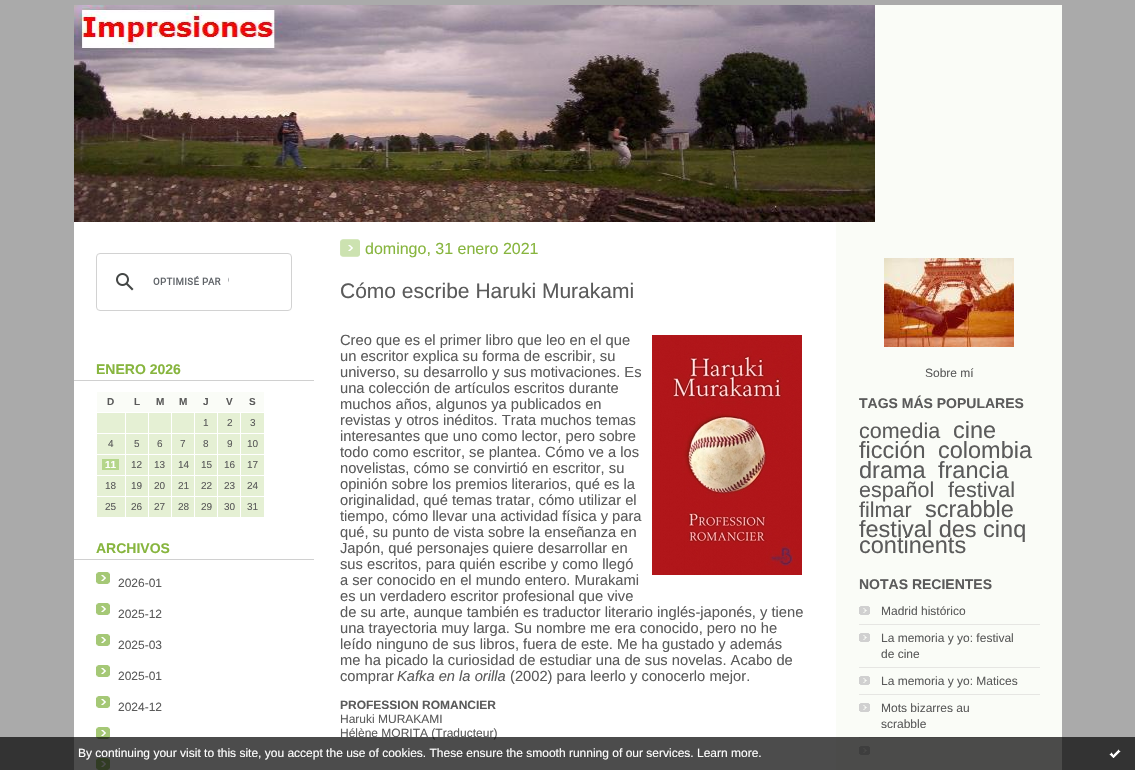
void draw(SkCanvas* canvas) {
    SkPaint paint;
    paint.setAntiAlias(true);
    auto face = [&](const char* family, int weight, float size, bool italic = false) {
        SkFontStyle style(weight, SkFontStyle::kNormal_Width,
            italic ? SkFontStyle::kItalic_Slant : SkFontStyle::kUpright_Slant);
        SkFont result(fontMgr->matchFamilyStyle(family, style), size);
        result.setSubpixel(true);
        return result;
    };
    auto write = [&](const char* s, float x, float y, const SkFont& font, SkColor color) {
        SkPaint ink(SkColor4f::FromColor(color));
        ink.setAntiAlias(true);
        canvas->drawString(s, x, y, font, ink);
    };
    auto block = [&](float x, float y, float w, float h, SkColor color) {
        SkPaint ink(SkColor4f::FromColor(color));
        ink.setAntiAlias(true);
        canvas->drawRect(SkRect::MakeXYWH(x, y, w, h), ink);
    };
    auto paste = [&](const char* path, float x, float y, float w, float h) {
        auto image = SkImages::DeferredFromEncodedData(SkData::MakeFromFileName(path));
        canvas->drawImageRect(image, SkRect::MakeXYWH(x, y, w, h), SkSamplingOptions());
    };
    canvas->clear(SkColorSetRGB(170, 170, 170));
    paste("pic1.png", 74, 5, 988, 765);
    paste("pic2.png", 74, 5, 801, 217);
    paint.setStyle(SkPaint::kStroke_Style);
    paint.setStrokeWidth(1);
    paint.setColor(SkColorSetRGB(210, 210, 210));
    canvas->drawRoundRect(SkRect::MakeXYWH(96.5f, 253.5f, 195, 57), 3.5f, 3.5f, paint);
    paste("pic3.png", 116, 273, 18, 18);
    paste("pic4.png", 153, 276, 76, 9);
    block(74, 380, 240, 1, SkColorSetRGB(208, 208, 208));
    auto kFont1 = face("Liberation Sans", 700, 14);
    write("ENERO 2026", 96, 374, kFont1, SkColorSetRGB(135, 181, 62));
    block(97, 413, 167, 104, SkColorSetRGB(229, 240, 212));
    block(97, 392, 167, 20, SkColorSetRGB(250, 252, 247));
    auto kFont2 = face("Liberation Sans", 700, 10);
    write("D", 107, 405, kFont2, SkColorSetRGB(91, 91, 91));
    write("L", 134, 405, kFont2, SkColorSetRGB(91, 91, 91));
    write("M", 156, 405, kFont2, SkColorSetRGB(91, 91, 91));
    write("M", 179, 405, kFont2, SkColorSetRGB(91, 91, 91));
    write("J", 203, 405, kFont2, SkColorSetRGB(91, 91, 91));
    write("V", 226, 405, kFont2, SkColorSetRGB(91, 91, 91));
    write("S", 249, 405, kFont2, SkColorSetRGB(91, 91, 91));
    block(240, 433, 25, 1, SK_ColorWHITE);
    block(240, 454, 25, 1, SK_ColorWHITE);
    block(240, 475, 25, 1, SK_ColorWHITE);
    block(240, 496, 25, 1, SK_ColorWHITE);
    block(240, 496, 1, 22, SK_ColorWHITE);
    block(217, 496, 24, 1, SK_ColorWHITE);
    block(240, 475, 1, 22, SK_ColorWHITE);
    block(217, 475, 24, 1, SK_ColorWHITE);
    block(240, 454, 1, 22, SK_ColorWHITE);
    block(217, 454, 24, 1, SK_ColorWHITE);
    block(240, 433, 1, 22, SK_ColorWHITE);
    block(217, 433, 24, 1, SK_ColorWHITE);
    block(217, 496, 1, 22, SK_ColorWHITE);
    block(194, 496, 24, 1, SK_ColorWHITE);
    block(217, 475, 1, 22, SK_ColorWHITE);
    block(194, 475, 24, 1, SK_ColorWHITE);
    block(217, 454, 1, 22, SK_ColorWHITE);
    block(194, 454, 24, 1, SK_ColorWHITE);
    block(217, 433, 1, 22, SK_ColorWHITE);
    block(194, 433, 24, 1, SK_ColorWHITE);
    block(194, 496, 1, 22, SK_ColorWHITE);
    block(171, 496, 24, 1, SK_ColorWHITE);
    block(194, 475, 1, 22, SK_ColorWHITE);
    block(171, 475, 24, 1, SK_ColorWHITE);
    block(194, 454, 1, 22, SK_ColorWHITE);
    block(171, 454, 24, 1, SK_ColorWHITE);
    block(194, 433, 1, 22, SK_ColorWHITE);
    block(171, 433, 24, 1, SK_ColorWHITE);
    block(171, 496, 1, 22, SK_ColorWHITE);
    block(148, 496, 24, 1, SK_ColorWHITE);
    block(171, 475, 1, 22, SK_ColorWHITE);
    block(148, 475, 24, 1, SK_ColorWHITE);
    block(171, 454, 1, 22, SK_ColorWHITE);
    block(148, 454, 24, 1, SK_ColorWHITE);
    block(171, 433, 1, 22, SK_ColorWHITE);
    block(148, 433, 24, 1, SK_ColorWHITE);
    block(148, 496, 1, 22, SK_ColorWHITE);
    block(125, 496, 24, 1, SK_ColorWHITE);
    block(148, 475, 1, 22, SK_ColorWHITE);
    block(125, 475, 24, 1, SK_ColorWHITE);
    block(148, 454, 1, 22, SK_ColorWHITE);
    block(125, 454, 24, 1, SK_ColorWHITE);
    block(148, 433, 1, 22, SK_ColorWHITE);
    block(125, 433, 24, 1, SK_ColorWHITE);
    block(125, 496, 1, 22, SK_ColorWHITE);
    block(96, 496, 30, 1, SK_ColorWHITE);
    block(125, 475, 1, 22, SK_ColorWHITE);
    block(96, 475, 30, 1, SK_ColorWHITE);
    block(125, 454, 1, 22, SK_ColorWHITE);
    block(96, 454, 30, 1, SK_ColorWHITE);
    block(125, 433, 1, 22, SK_ColorWHITE);
    block(96, 433, 30, 1, SK_ColorWHITE);
    block(125, 412, 1, 22, SK_ColorWHITE);
    block(148, 412, 1, 22, SK_ColorWHITE);
    block(171, 412, 1, 22, SK_ColorWHITE);
    block(194, 412, 1, 22, SK_ColorWHITE);
    auto kFont3 = face("Liberation Sans", 400, 10);
    write("1", 203, 426, kFont3, SkColorSetRGB(91, 91, 91));
    block(217, 412, 1, 22, SK_ColorWHITE);
    write("2", 227, 426, kFont3, SkColorSetRGB(91, 91, 91));
    block(240, 412, 1, 22, SK_ColorWHITE);
    write("3", 250, 426, kFont3, SkColorSetRGB(91, 91, 91));
    write("4", 108, 447, kFont3, SkColorSetRGB(91, 91, 91));
    write("5", 134, 447, kFont3, SkColorSetRGB(91, 91, 91));
    write("6", 157, 447, kFont3, SkColorSetRGB(91, 91, 91));
    write("7", 180, 447, kFont3, SkColorSetRGB(91, 91, 91));
    write("8", 203, 447, kFont3, SkColorSetRGB(91, 91, 91));
    write("9", 227, 447, kFont3, SkColorSetRGB(91, 91, 91));
    write("10", 247, 447, kFont3, SkColorSetRGB(91, 91, 91));
    block(102, 459, 17, 11, SkColorSetRGB(181, 214, 139));
    write("11", 105, 468, kFont2, SK_ColorWHITE);
    write("12", 131, 468, kFont3, SkColorSetRGB(91, 91, 91));
    write("13", 154, 468, kFont3, SkColorSetRGB(91, 91, 91));
    write("14", 178, 468, kFont3, SkColorSetRGB(91, 91, 91));
    write("15", 201, 468, kFont3, SkColorSetRGB(91, 91, 91));
    write("16", 224, 468, kFont3, SkColorSetRGB(91, 91, 91));
    write("17", 247, 468, kFont3, SkColorSetRGB(91, 91, 91));
    write("18", 105, 489, kFont3, SkColorSetRGB(91, 91, 91));
    write("19", 131, 489, kFont3, SkColorSetRGB(91, 91, 91));
    write("20", 154, 489, kFont3, SkColorSetRGB(91, 91, 91));
    write("21", 178, 489, kFont3, SkColorSetRGB(91, 91, 91));
    write("22", 201, 489, kFont3, SkColorSetRGB(91, 91, 91));
    write("23", 224, 489, kFont3, SkColorSetRGB(91, 91, 91));
    write("24", 247, 489, kFont3, SkColorSetRGB(91, 91, 91));
    write("25", 105, 510, kFont3, SkColorSetRGB(91, 91, 91));
    write("26", 131, 510, kFont3, SkColorSetRGB(91, 91, 91));
    write("27", 154, 510, kFont3, SkColorSetRGB(91, 91, 91));
    write("28", 178, 510, kFont3, SkColorSetRGB(91, 91, 91));
    write("29", 201, 510, kFont3, SkColorSetRGB(91, 91, 91));
    write("30", 224, 510, kFont3, SkColorSetRGB(91, 91, 91));
    write("31", 247, 510, kFont3, SkColorSetRGB(91, 91, 91));
    block(74, 559, 240, 1, SkColorSetRGB(208, 208, 208));
    write("ARCHIVOS", 96, 553, kFont1, SkColorSetRGB(135, 181, 62));
    paste("pic5.png", 96, 572, 14, 12);
    auto kFont4 = face("Liberation Sans", 400, 12);
    write("2026-01", 118, 587, kFont4, SkColorSetRGB(91, 91, 91));
    paste("pic5.png", 96, 603, 14, 12);
    write("2025-12", 118, 618, kFont4, SkColorSetRGB(91, 91, 91));
    paste("pic5.png", 96, 634, 14, 12);
    write("2025-03", 118, 649, kFont4, SkColorSetRGB(91, 91, 91));
    paste("pic5.png", 96, 665, 14, 12);
    write("2025-01", 118, 680, kFont4, SkColorSetRGB(91, 91, 91));
    paste("pic5.png", 96, 696, 14, 12);
    write("2024-12", 118, 711, kFont4, SkColorSetRGB(91, 91, 91));
    paste("pic5.png", 96, 727, 14, 12);
    paste("pic5.png", 96, 758, 14, 12);
    paste("pic6.png", 340, 239, 20, 18);
    auto kFont5 = face("Liberation Sans", 400, 16);
    write("domingo, 31 enero 2021", 365, 254, kFont5, SkColorSetRGB(135, 181, 62));
    auto kFont6 = face("Liberation Sans", 400, 21);
    write("Cómo escribe Haruki Murakami", 340, 298, kFont6, SkColorSetRGB(91, 91, 91));
    auto kFont7 = face("Liberation Sans", 400, 14.7f);
    write("Creo que es el primer libro que leo en el que", 340, 345, kFont7, SkColorSetRGB(91, 91, 91));
    paste("pic7.png", 652, 335, 150, 240);
    write("un escritor explica su forma de escribir, su", 340, 361, kFont7, SkColorSetRGB(91, 91, 91));
    write("universo, su desarrollo y sus motivaciones. Es", 340, 377, kFont7, SkColorSetRGB(91, 91, 91));
    write("una colección de artículos escritos durante", 340, 393, kFont7, SkColorSetRGB(91, 91, 91));
    write("muchos años, algunos ya publicados en", 340, 409, kFont7, SkColorSetRGB(91, 91, 91));
    write("revistas y otros inéditos. Trata muchos temas", 340, 425, kFont7, SkColorSetRGB(91, 91, 91));
    write("interesantes que uno como lector, pero sobre", 340, 441, kFont7, SkColorSetRGB(91, 91, 91));
    write("todo como escritor, se plantea. Cómo ve a los", 340, 457, kFont7, SkColorSetRGB(91, 91, 91));
    write("novelistas, cómo se convirtió en escritor, su", 340, 473, kFont7, SkColorSetRGB(91, 91, 91));
    write("opinión sobre los premios literarios, qué es la", 340, 489, kFont7, SkColorSetRGB(91, 91, 91));
    write("originalidad, qué temas tratar, cómo utilizar el", 340, 505, kFont7, SkColorSetRGB(91, 91, 91));
    write("tiempo, cómo llevar una actividad física y para", 340, 521, kFont7, SkColorSetRGB(91, 91, 91));
    write("qué, su punto de vista sobre la enseñanza en", 340, 537, kFont7, SkColorSetRGB(91, 91, 91));
    write("Japón, qué personajes quiere desarrollar en", 340, 553, kFont7, SkColorSetRGB(91, 91, 91));
    write("sus escritos, para quién escribe y como llegó", 340, 569, kFont7, SkColorSetRGB(91, 91, 91));
    write("a ser conocido en el mundo entero. Murakami", 340, 585, kFont7, SkColorSetRGB(91, 91, 91));
    write("es un verdadero escritor profesional que vive", 340, 601, kFont7, SkColorSetRGB(91, 91, 91));
    write("de su arte, aunque también es traductor literario inglés-japonés, y tiene", 340, 617, kFont7, SkColorSetRGB(91, 91, 91));
    write("una trayectoria muy larga. Su nombre me era conocido, pero no he", 340, 633, kFont7, SkColorSetRGB(91, 91, 91));
    write("leído ninguno de sus libros, fuera de este. Me ha gustado y además", 340, 649, kFont7, SkColorSetRGB(91, 91, 91));
    write("me ha picado la curiosidad de estudiar una de sus novelas. Acabo de", 340, 665, kFont7, SkColorSetRGB(91, 91, 91));
    write("comprar", 340, 681, kFont7, SkColorSetRGB(91, 91, 91));
    auto kFont8 = face("Liberation Sans", 400, 14.7f, true);
    write("Kafka en la orilla", 397, 681, kFont8, SkColorSetRGB(91, 91, 91));
    write("(2002) para leerlo y conocerlo mejor.", 510, 681, kFont7, SkColorSetRGB(91, 91, 91));
    auto kFont9 = face("Liberation Sans", 700, 12);
    write("PROFESSION ROMANCIER", 340, 709, kFont9, SkColorSetRGB(91, 91, 91));
    write("Haruki MURAKAMI", 340, 723, kFont4, SkColorSetRGB(91, 91, 91));
    write("Hélène MORITA (Traducteur)", 340, 737, kFont4, SkColorSetRGB(91, 91, 91));
    paste("pic8.png", 884, 258, 130, 89);
    write("Sobre mí", 925, 377, kFont4, SkColorSetRGB(91, 91, 91));
    write("TAGS MÁS POPULARES", 859, 408, kFont1, SkColorSetRGB(91, 91, 91));
    auto kFont10 = face("Liberation Sans", 400, 21.5f);
    write("comedia", 859, 438, kFont10, SkColorSetRGB(91, 91, 91));
    auto kFont11 = face("Liberation Sans", 400, 23.5f);
    write("cine", 953, 438, kFont11, SkColorSetRGB(91, 91, 91));
    write("ficción", 859, 458, kFont11, SkColorSetRGB(91, 91, 91));
    write("colombia", 938, 458, kFont11, SkColorSetRGB(91, 91, 91));
    write("drama", 859, 478, kFont11, SkColorSetRGB(91, 91, 91));
    write("francia", 938, 478, kFont11, SkColorSetRGB(91, 91, 91));
    write("español", 859, 497, kFont10, SkColorSetRGB(91, 91, 91));
    write("festival", 948, 497, kFont10, SkColorSetRGB(91, 91, 91));
    write("filmar", 859, 517, kFont10, SkColorSetRGB(91, 91, 91));
    write("scrabble", 925, 517, kFont11, SkColorSetRGB(91, 91, 91));
    write("festival des cinq", 859, 537, kFont11, SkColorSetRGB(91, 91, 91));
    write("continents", 859, 553, kFont11, SkColorSetRGB(91, 91, 91));
    write("NOTAS RECIENTES", 859, 589, kFont1, SkColorSetRGB(91, 91, 91));
    paste("pic9.png", 859, 606, 11, 9);
    block(859, 624, 181, 1, SkColorSetRGB(230, 230, 227));
    write("Madrid histórico", 881, 615, kFont4, SkColorSetRGB(91, 91, 91));
    paste("pic9.png", 859, 633, 11, 9);
    block(859, 667, 181, 1, SkColorSetRGB(230, 230, 227));
    write("La memoria y yo: festival", 881, 642, kFont4, SkColorSetRGB(91, 91, 91));
    write("de cine", 881, 658, kFont4, SkColorSetRGB(91, 91, 91));
    paste("pic9.png", 859, 676, 11, 9);
    block(859, 694, 181, 1, SkColorSetRGB(230, 230, 227));
    write("La memoria y yo: Matices", 881, 685, kFont4, SkColorSetRGB(91, 91, 91));
    paste("pic9.png", 859, 703, 11, 9);
    block(859, 737, 181, 1, SkColorSetRGB(230, 230, 227));
    write("Mots bizarres au", 881, 712, kFont4, SkColorSetRGB(91, 91, 91));
    write("scrabble", 881, 728, kFont4, SkColorSetRGB(91, 91, 91));
    paste("pic9.png", 859, 746, 11, 9);
    block(0, 737, 1135, 33, SkColorSetARGB(179, 0, 0, 0));
    write("By continuing your visit to this site, you accept the use of cookies. These ensure the smooth running of our services. Learn more.", 78, 757, kFont4, SK_ColorWHITE);
    paste("pic10.png", 1109, 749, 12, 9);
}
